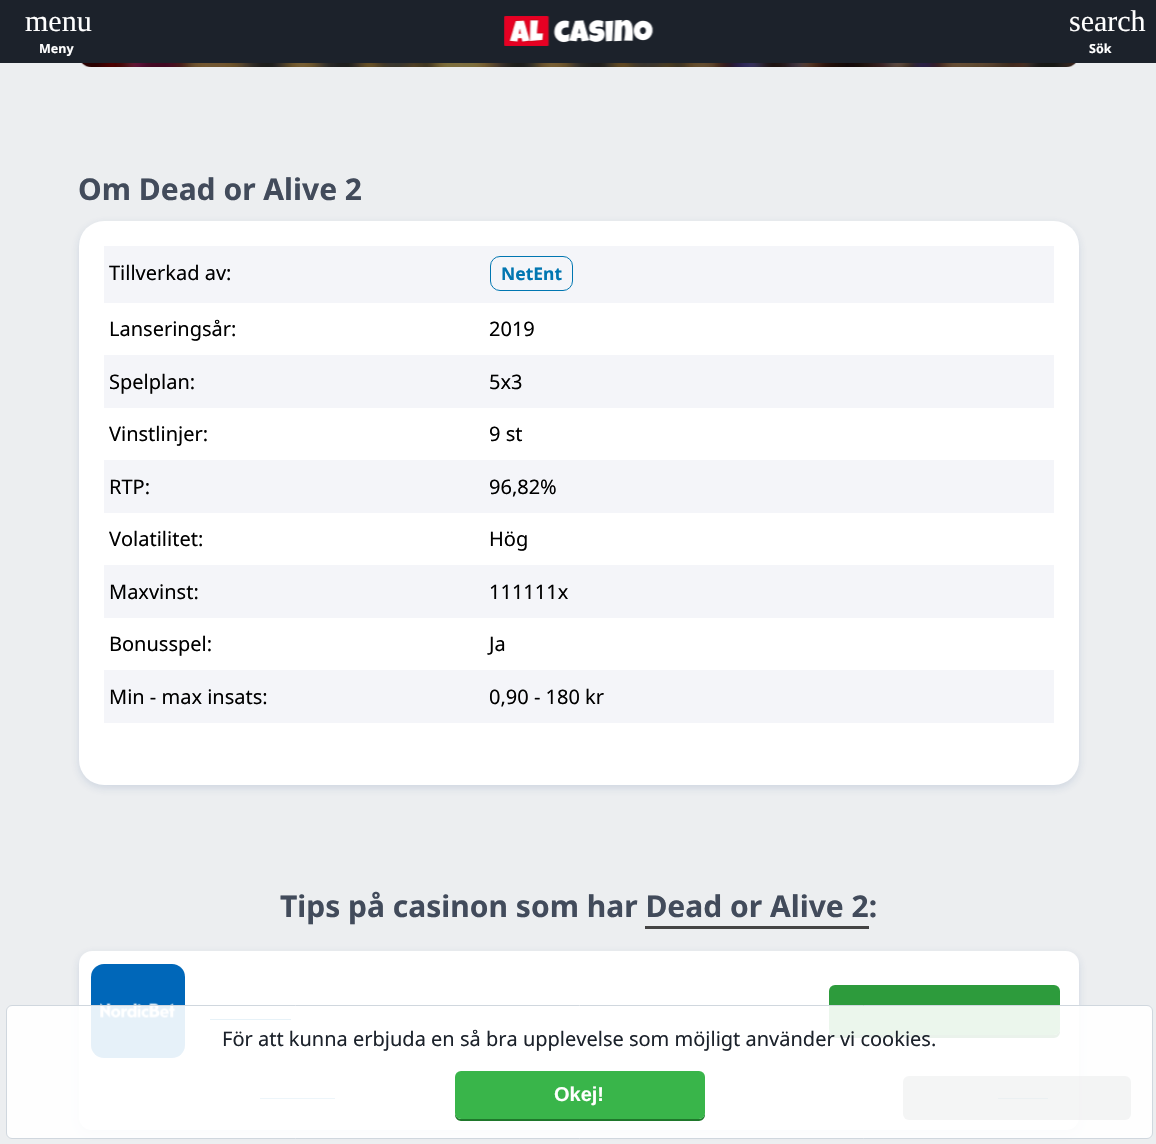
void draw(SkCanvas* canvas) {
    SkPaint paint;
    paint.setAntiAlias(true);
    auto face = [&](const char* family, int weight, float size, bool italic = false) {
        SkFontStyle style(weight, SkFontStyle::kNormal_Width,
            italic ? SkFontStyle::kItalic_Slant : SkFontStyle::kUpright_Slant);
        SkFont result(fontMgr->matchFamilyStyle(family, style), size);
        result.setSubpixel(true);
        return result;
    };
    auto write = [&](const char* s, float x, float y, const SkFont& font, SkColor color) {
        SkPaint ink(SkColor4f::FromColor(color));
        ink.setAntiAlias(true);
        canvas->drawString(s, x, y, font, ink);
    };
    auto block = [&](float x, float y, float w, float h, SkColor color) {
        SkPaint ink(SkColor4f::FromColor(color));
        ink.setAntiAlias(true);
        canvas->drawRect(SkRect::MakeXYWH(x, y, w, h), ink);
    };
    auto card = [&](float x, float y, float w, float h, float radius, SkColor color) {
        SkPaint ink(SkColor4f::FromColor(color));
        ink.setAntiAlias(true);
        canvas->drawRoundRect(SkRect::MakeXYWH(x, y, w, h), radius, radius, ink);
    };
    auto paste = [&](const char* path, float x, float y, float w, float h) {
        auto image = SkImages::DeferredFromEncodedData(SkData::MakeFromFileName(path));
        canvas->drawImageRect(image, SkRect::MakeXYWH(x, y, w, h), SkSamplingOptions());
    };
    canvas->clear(SkColorSetRGB(236, 238, 240));
    block(0, 0, 1156, 63, SkColorSetRGB(28, 34, 43));
    auto kFont1 = face("Liberation Serif", 400, 30);
    write("menu", 25, 31, kFont1, SK_ColorWHITE);
    auto kFont2 = face("Noto Sans", 700, 12.5f);
    write("Meny", 39, 53, kFont2, SK_ColorWHITE);
    paste("pic1.png", 504, 16, 150, 30);
    write("search", 1069, 31, kFont1, SK_ColorWHITE);
    write("Sök", 1089, 53, kFont2, SK_ColorWHITE);
    paste("pic2.png", 81, 63, 995, 4);
    auto kFont3 = face("Noto Sans", 700, 30);
    write("Om Dead or Alive 2", 78, 200, kFont3, SkColorSetRGB(66, 75, 91));
    paint.setColor(SkColorSetARGB(38, 32, 76, 136));
    paint.setMaskFilter(SkMaskFilter::MakeBlur(kNormal_SkBlurStyle, 4));
    canvas->drawRoundRect(SkRect::MakeXYWH(79, 224, 1000, 564), 25, 25, paint);
    paint.setMaskFilter(nullptr);
    card(79, 221, 1000, 564, 25, SK_ColorWHITE);
    block(104, 246, 950, 57, SkColorSetRGB(244, 245, 249));
    auto kFont4 = face("Noto Sans", 400, 20);
    write("Tillverkad av:", 109, 280, kFont4, SK_ColorBLACK);
    paint.setStyle(SkPaint::kStroke_Style);
    paint.setStrokeWidth(1);
    paint.setColor(SkColorSetRGB(0, 118, 177));
    canvas->drawRoundRect(SkRect::MakeXYWH(490.5f, 256.5f, 82, 34), 9.5f, 9.5f, paint);
    auto kFont5 = face("Noto Sans", 700, 17.5f);
    write("NetEnt", 501, 280, kFont5, SkColorSetRGB(1, 118, 177));
    write("Lanseringsår:", 109, 336, kFont4, SK_ColorBLACK);
    write("2019", 489, 336, kFont4, SK_ColorBLACK);
    block(104, 355, 950, 53, SkColorSetRGB(244, 245, 249));
    write("Spelplan:", 109, 389, kFont4, SK_ColorBLACK);
    write("5x3", 489, 389, kFont4, SK_ColorBLACK);
    write("Vinstlinjer:", 109, 441, kFont4, SK_ColorBLACK);
    write("9 st", 489, 441, kFont4, SK_ColorBLACK);
    block(104, 460, 950, 53, SkColorSetRGB(244, 245, 249));
    write("RTP:", 109, 494, kFont4, SK_ColorBLACK);
    write("96,82%", 489, 494, kFont4, SK_ColorBLACK);
    write("Volatilitet:", 109, 546, kFont4, SK_ColorBLACK);
    write("Hög", 489, 546, kFont4, SK_ColorBLACK);
    block(104, 565, 950, 53, SkColorSetRGB(244, 245, 249));
    write("Maxvinst:", 109, 599, kFont4, SK_ColorBLACK);
    write("111111x", 489, 599, kFont4, SK_ColorBLACK);
    write("Bonusspel:", 109, 651, kFont4, SK_ColorBLACK);
    write("Ja", 489, 651, kFont4, SK_ColorBLACK);
    block(104, 670, 950, 53, SkColorSetRGB(244, 245, 249));
    write("Min - max insats:", 109, 704, kFont4, SK_ColorBLACK);
    write("0,90 - 180 kr", 489, 704, kFont4, SK_ColorBLACK);
    write("Tips på casinon som har Dead or Alive 2:", 280, 917, kFont3, SkColorSetRGB(66, 75, 91));
    block(645, 926, 224, 3, SkColorSetRGB(68, 68, 68));
    paint.setStyle(SkPaint::kFill_Style);
    paint.setColor(SkColorSetARGB(38, 32, 76, 136));
    paint.setMaskFilter(SkMaskFilter::MakeBlur(kNormal_SkBlurStyle, 4));
    canvas->drawRoundRect(SkRect::MakeXYWH(79, 954, 1000, 179), 13, 13, paint);
    paint.setMaskFilter(nullptr);
    card(79, 951, 1000, 179, 13, SK_ColorWHITE);
    card(91, 964, 94, 94, 13, SkColorSetRGB(0, 103, 185));
    paste("pic3.png", 100, 1002, 76, 16);
    block(210, 1019, 81, 1, SkColorSetRGB(1, 118, 177));
    paint.setColor(SkColorSetRGB(31, 120, 43));
    canvas->drawPath(SkPathBuilder().moveTo(829, 1031).lineTo(829, 1032).cubicTo(829, 1035, 832, 1038, 835, 1038).lineTo(1054, 1038).cubicTo(1057, 1038, 1060, 1035, 1060, 1032).lineTo(1060, 1029).cubicTo(1060, 1032, 1057, 1035, 1054, 1035).lineTo(835, 1035).cubicTo(832, 1035, 830, 1033, 829, 1031).close().detach(), paint);
    card(829, 985, 231, 50, 6, SkColorSetRGB(45, 155, 60));
    block(260, 1098, 75, 1, SkColorSetRGB(65, 152, 197));
    block(998, 1098, 50, 1, SkColorSetRGB(65, 152, 197));
    card(903, 1076, 228, 44, 6, SkColorSetARGB(128, 28, 34, 43));
    paint.setColor(SkColorSetARGB(230, 255, 255, 255));
    canvas->drawRoundRect(SkRect::MakeXYWH(6.5f, 1005.5f, 1146, 133), 5.5f, 5.5f, paint);
    paint.setStyle(SkPaint::kStroke_Style);
    paint.setColor(SkColorSetRGB(208, 215, 222));
    canvas->drawRoundRect(SkRect::MakeXYWH(6.5f, 1005.5f, 1146, 133), 5.5f, 5.5f, paint);
    write("För att kunna erbjuda en så bra upplevelse som möjligt använder vi cookies.", 222, 1046, kFont4, SkColorSetRGB(28, 34, 43));
    paint.setStyle(SkPaint::kFill_Style);
    paint.setColor(SkColorSetRGB(31, 120, 43));
    canvas->drawPath(SkPathBuilder().moveTo(455, 1112).lineTo(455, 1115).cubicTo(455, 1118, 458, 1121, 461, 1121).lineTo(699, 1121).cubicTo(702, 1121, 705, 1118, 705, 1115).lineTo(705, 1112).cubicTo(705, 1116, 702, 1119, 699, 1119).lineTo(461, 1119).cubicTo(458, 1119, 455, 1116, 455, 1112).close().detach(), paint);
    card(455, 1071, 250, 48, 6, SkColorSetRGB(57, 181, 74));
    auto kFont6 = face("Liberation Sans", 700, 20);
    write("Okej!", 554, 1101, kFont6, SK_ColorWHITE);
}
